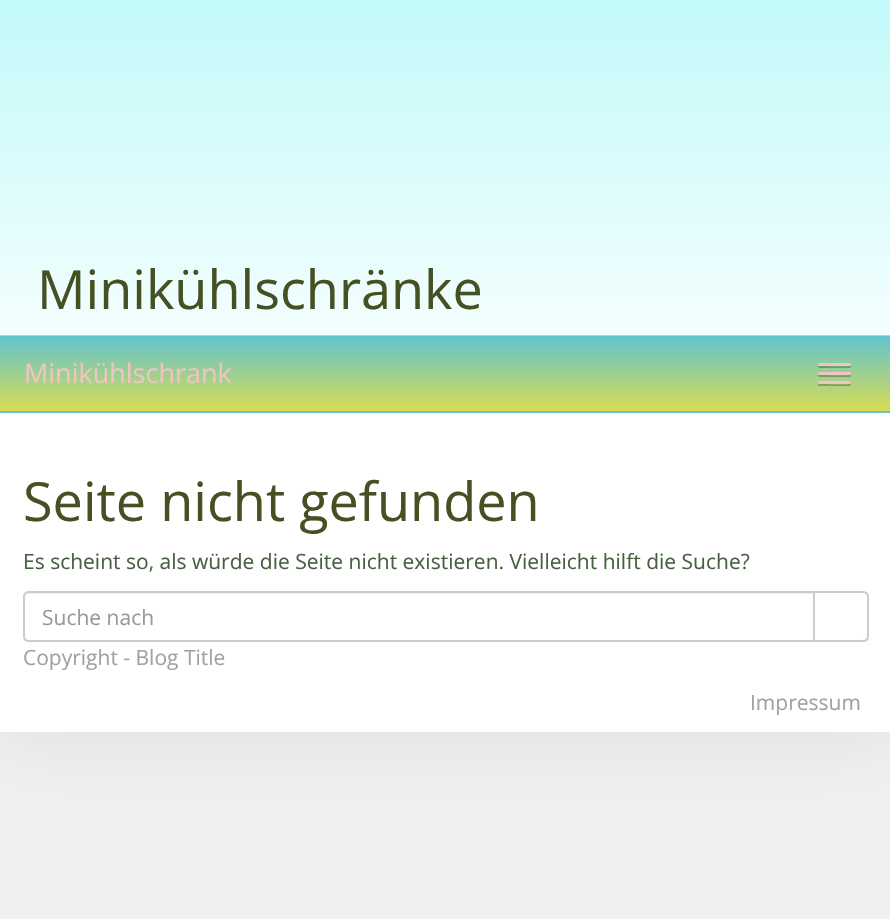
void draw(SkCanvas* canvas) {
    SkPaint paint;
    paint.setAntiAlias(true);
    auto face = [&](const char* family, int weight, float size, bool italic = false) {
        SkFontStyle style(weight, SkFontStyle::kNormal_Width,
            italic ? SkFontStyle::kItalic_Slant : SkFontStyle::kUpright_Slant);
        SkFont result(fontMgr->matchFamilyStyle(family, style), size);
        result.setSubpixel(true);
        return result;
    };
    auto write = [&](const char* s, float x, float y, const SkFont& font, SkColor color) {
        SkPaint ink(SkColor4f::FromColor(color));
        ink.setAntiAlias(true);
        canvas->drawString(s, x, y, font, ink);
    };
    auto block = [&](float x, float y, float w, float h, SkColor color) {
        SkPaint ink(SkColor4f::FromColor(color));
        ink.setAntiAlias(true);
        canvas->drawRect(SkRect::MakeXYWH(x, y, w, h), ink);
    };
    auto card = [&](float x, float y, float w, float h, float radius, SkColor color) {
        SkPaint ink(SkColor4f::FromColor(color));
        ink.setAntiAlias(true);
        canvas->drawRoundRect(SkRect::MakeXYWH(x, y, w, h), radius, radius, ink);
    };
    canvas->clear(SkColorSetRGB(240, 240, 240));
    paint.setColor(SkColorSetRGB(221, 221, 221));
    paint.setMaskFilter(SkMaskFilter::MakeBlur(kNormal_SkBlurStyle, 37.5f));
    canvas->drawRect(SkRect::MakeXYWH(0, 0, 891, 732), paint);
    paint.setMaskFilter(nullptr);
    block(0, 413, 890, 319, SK_ColorWHITE);
    {
        const SkColor colors[] = {SkColorSetRGB(194, 249, 249), SK_ColorWHITE};
        const float stops[] = {0, 1};
        const SkPoint ends[] = {{446, 0}, {446, 413}};
        paint.setShader(SkGradientShader::MakeLinear(ends, colors, stops, 2, SkTileMode::kClamp));
        paint.setAlpha(255);
    }
    canvas->drawRect(SkRect::MakeXYWH(0, 0, 890, 335), paint);
    auto kFont1 = face("Open Sans", 400, 54);
    write("Minikühlschränke", 37, 309, kFont1, SkColorSetRGB(69, 81, 35));
    {
        const SkColor colors[] = {SkColorSetRGB(97, 196, 204), SkColorSetRGB(217, 219, 85)};
        const float stops[] = {0, 1};
        const SkPoint ends[] = {{446, 261}, {446, 336}};
        paint.setShader(SkGradientShader::MakeLinear(ends, colors, stops, 2, SkTileMode::kClamp));
        paint.setAlpha(255);
    }
    canvas->drawRect(SkRect::MakeXYWH(0, 335, 890, 1), paint);
    {
        const SkColor colors[] = {SkColorSetRGB(97, 196, 204), SkColorSetRGB(217, 219, 85)};
        const float stops[] = {0, 1};
        const SkPoint ends[] = {{446, 336}, {446, 411}};
        paint.setShader(SkGradientShader::MakeLinear(ends, colors, stops, 2, SkTileMode::kClamp));
        paint.setAlpha(255);
    }
    canvas->drawRect(SkRect::MakeXYWH(0, 336, 890, 75), paint);
    {
        const SkColor colors[] = {SkColorSetRGB(97, 196, 204), SkColorSetRGB(217, 219, 85)};
        const float stops[] = {0, 1};
        const SkPoint ends[] = {{446, 411}, {446, 486}};
        paint.setShader(SkGradientShader::MakeLinear(ends, colors, stops, 2, SkTileMode::kClamp));
        paint.setAlpha(255);
    }
    canvas->drawRect(SkRect::MakeXYWH(0, 411, 890, 2), paint);
    auto kFont2 = face("Open Sans", 400, 27);
    write("Minikühlschrank", 24, 383, kFont2, SkColorSetRGB(239, 196, 196));
    paint.setShader(nullptr);
    paint.setColor(SkColorSetARGB(64, 0, 0, 0));
    canvas->drawPath(SkPathBuilder().moveTo(818, 366).cubicTo(816.5f, 368.5f, 821, 368, 824.5f, 368).lineTo(850, 368).cubicTo(851, 367.5f, 851.5f, 366, 850.5f, 365).lineTo(849, 366).cubicTo(847, 366.5f, 819, 366, 818, 366).close().detach(), paint);
    card(818, 363, 33, 3, 1.5f, SkColorSetRGB(239, 196, 196));
    canvas->drawPath(SkPathBuilder().moveTo(818, 375).cubicTo(816.5f, 377.5f, 821, 377, 824.5f, 377).lineTo(850, 377).cubicTo(851, 376.5f, 851.5f, 375, 850.5f, 374).lineTo(849, 375).cubicTo(847, 375.5f, 819, 375, 818, 375).close().detach(), paint);
    card(818, 372, 33, 3, 1.5f, SkColorSetRGB(239, 196, 196));
    canvas->drawPath(SkPathBuilder().moveTo(818, 384).cubicTo(816.5f, 386.5f, 821, 386, 824.5f, 386).lineTo(850, 386).cubicTo(851, 385.5f, 851.5f, 384, 850.5f, 383).lineTo(849, 384).cubicTo(847, 384.5f, 819, 384, 818, 384).close().detach(), paint);
    card(818, 381, 33, 3, 1.5f, SkColorSetRGB(239, 196, 196));
    write("Seite nicht gefunden", 23, 521, kFont1, SkColorSetRGB(69, 81, 35));
    auto kFont3 = face("Open Sans", 400, 21);
    write("Es scheint so, als würde die Seite nicht existieren. Vielleicht hilft die Suche?", 23, 569, kFont3, SkColorSetRGB(72, 96, 66));
    paint.setColor(SkColorSetRGB(236, 236, 236));
    canvas->drawPath(SkPathBuilder().moveTo(28, 594).lineTo(813, 594).lineTo(813, 593).lineTo(29, 593).cubicTo(26, 593, 24, 595, 24, 598).cubicTo(24, 596, 26, 594, 28, 594).close().detach(), paint);
    paint.setStyle(SkPaint::kStroke_Style);
    paint.setStrokeWidth(2);
    paint.setColor(SkColorSetRGB(204, 204, 204));
    canvas->drawPath(SkPathBuilder().moveTo(29, 592).lineTo(814, 592).lineTo(814, 641).lineTo(29, 641).cubicTo(26, 641, 24, 639, 24, 636).lineTo(24, 597).cubicTo(24, 594, 26, 592, 29, 592).close().detach(), paint);
    write("Suche nach", 42, 625, kFont3, SkColorSetRGB(153, 153, 153));
    paint.setStyle(SkPaint::kFill_Style);
    paint.setColor(SK_ColorWHITE);
    canvas->drawPath(SkPathBuilder().moveTo(814, 592).lineTo(863, 592).cubicTo(866, 592, 868, 594, 868, 597).lineTo(868, 636).cubicTo(868, 639, 866, 641, 863, 641).lineTo(814, 641).close().detach(), paint);
    paint.setStyle(SkPaint::kStroke_Style);
    paint.setColor(SkColorSetRGB(204, 204, 204));
    canvas->drawPath(SkPathBuilder().moveTo(814, 592).lineTo(863, 592).cubicTo(866, 592, 868, 594, 868, 597).lineTo(868, 636).cubicTo(868, 639, 866, 641, 863, 641).lineTo(814, 641).close().detach(), paint);
    write("Copyright - Blog Title", 23, 665, kFont3, SkColorSetRGB(159, 162, 165));
    write("Impressum", 750, 710, kFont3, SkColorSetRGB(159, 162, 165));
}
